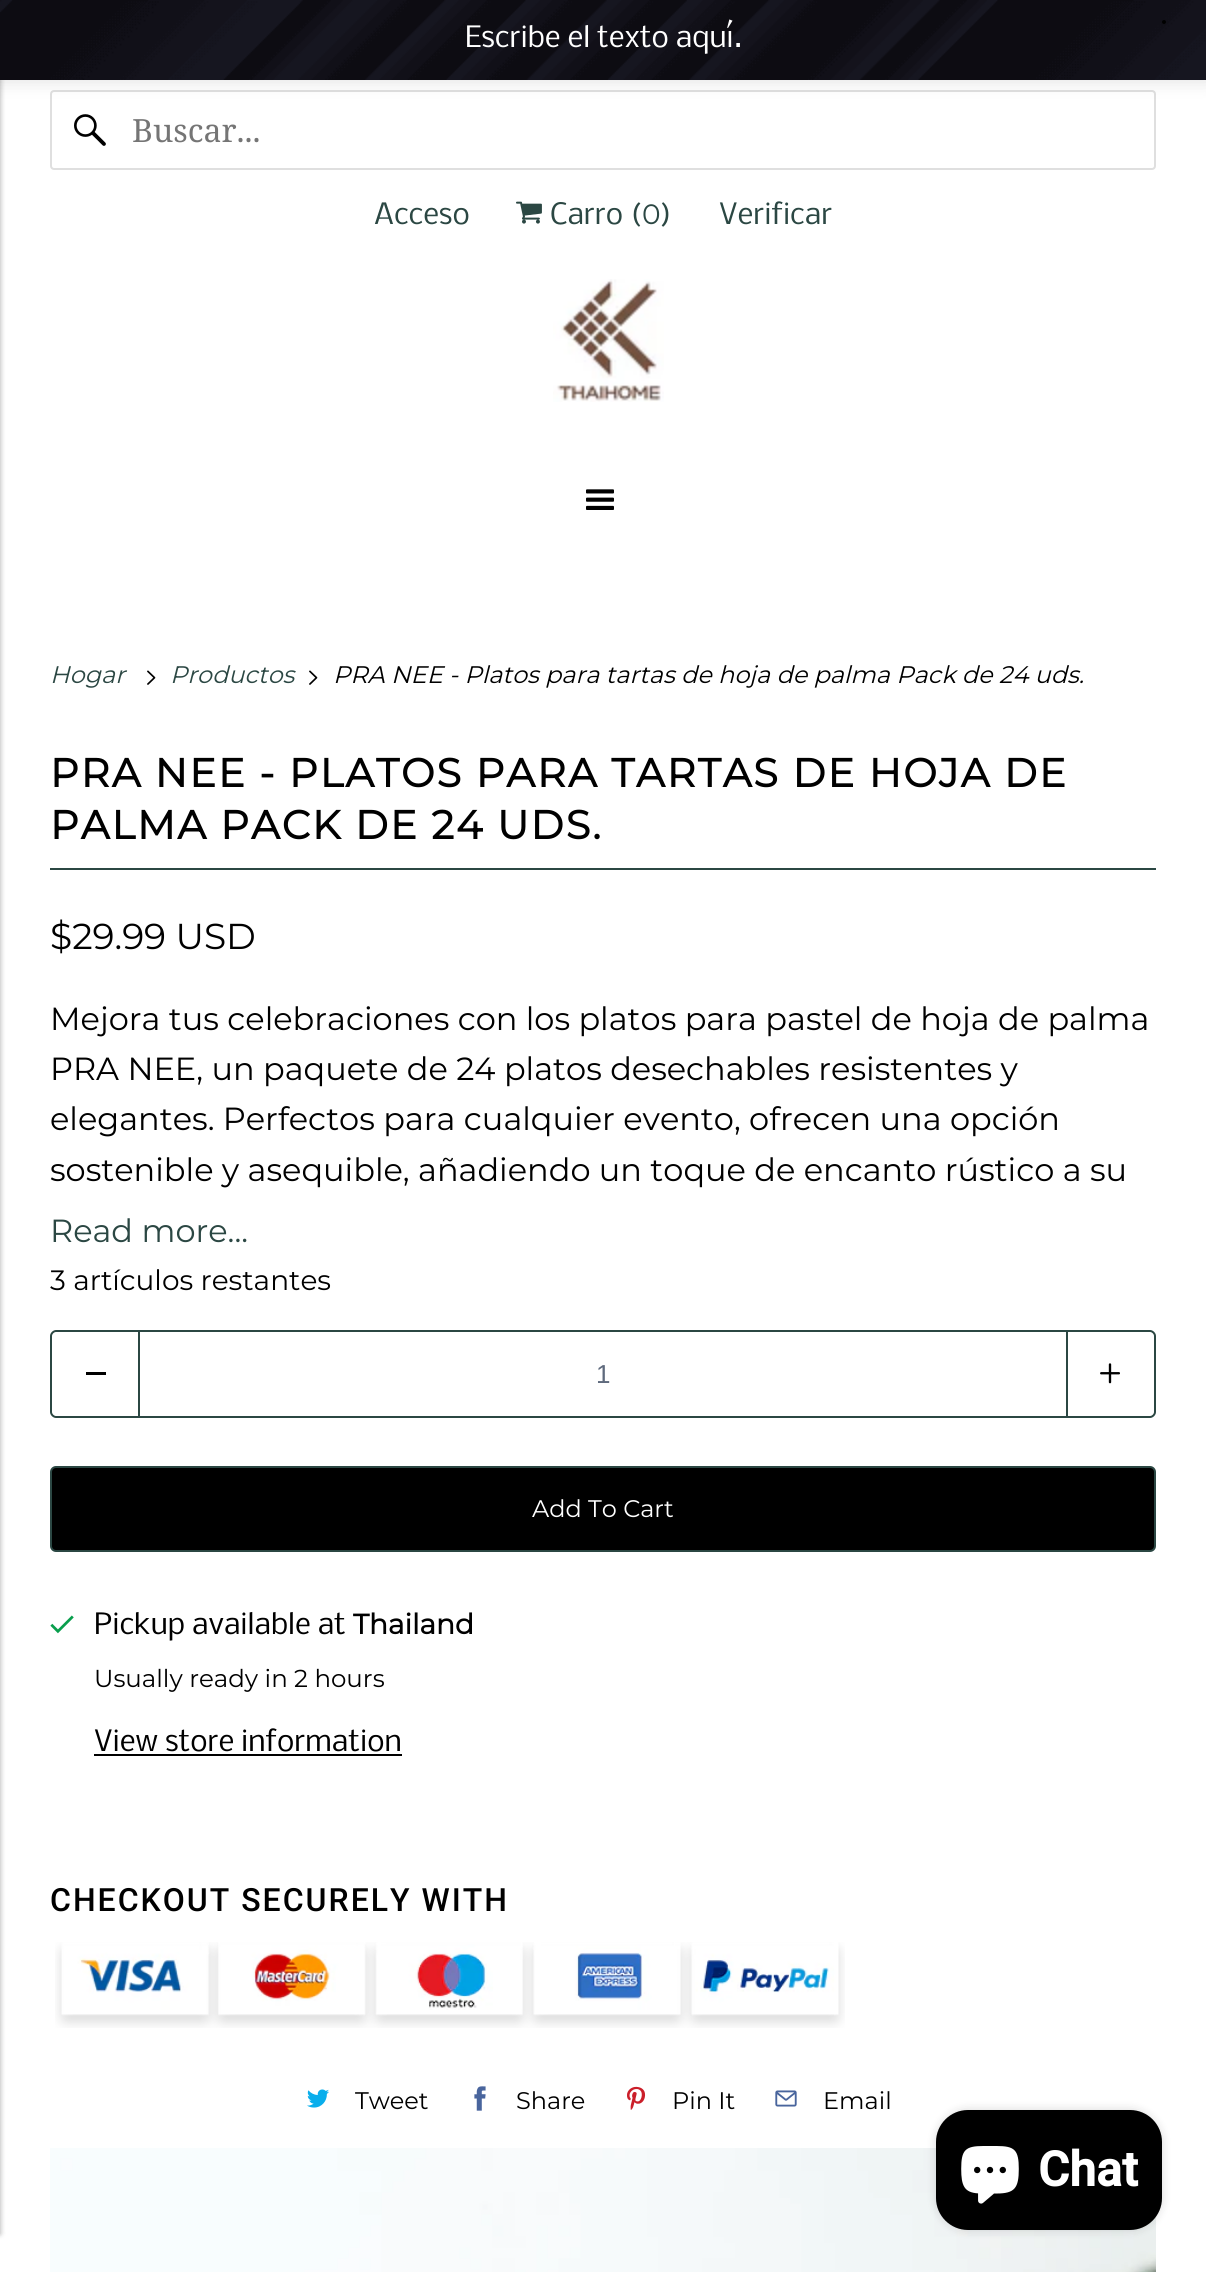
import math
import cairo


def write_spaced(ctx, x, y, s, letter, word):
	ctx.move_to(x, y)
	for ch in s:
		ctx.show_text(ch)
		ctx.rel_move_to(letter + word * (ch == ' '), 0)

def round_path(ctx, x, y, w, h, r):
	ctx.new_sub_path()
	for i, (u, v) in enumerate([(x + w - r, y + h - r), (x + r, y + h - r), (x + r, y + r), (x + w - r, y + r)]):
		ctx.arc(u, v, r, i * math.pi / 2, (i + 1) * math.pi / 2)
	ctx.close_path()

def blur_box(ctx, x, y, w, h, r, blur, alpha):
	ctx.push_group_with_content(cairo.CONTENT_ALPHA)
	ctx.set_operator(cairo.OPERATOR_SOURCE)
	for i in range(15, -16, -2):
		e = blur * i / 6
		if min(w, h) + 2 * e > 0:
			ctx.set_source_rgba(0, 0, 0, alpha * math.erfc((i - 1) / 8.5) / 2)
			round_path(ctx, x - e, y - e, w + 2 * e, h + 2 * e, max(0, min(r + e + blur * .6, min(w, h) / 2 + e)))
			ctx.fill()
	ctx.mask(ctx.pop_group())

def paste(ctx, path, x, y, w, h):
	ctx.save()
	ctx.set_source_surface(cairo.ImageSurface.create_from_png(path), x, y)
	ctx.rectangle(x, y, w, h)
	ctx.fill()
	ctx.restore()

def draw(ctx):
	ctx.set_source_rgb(1, 1, 1)
	ctx.paint()
	round_path(ctx, 51, 91, 1104, 78, 3)
	ctx.set_source_rgb(0.875, 0.875, 0.875)
	ctx.stroke()
	ctx.set_source_rgb(0, 0, 0)
	blur_box(ctx, -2, -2, 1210, 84, 0, 9, 0.11)
	blur_box(ctx, -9, 2, 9, 2232, 0, 3, 0.24)
	blur_box(ctx, -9, 2, 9, 2232, 0, 3, 0.12)
	paste(ctx, 'media/1.png', 0, 0, 1206, 80)
	ctx.select_font_face('Nobile')
	ctx.set_font_size(28)
	ctx.set_source_rgb(1, 1, 1)
	ctx.move_to(465, 47)
	ctx.show_text('Escribe el texto aquí.')
	ctx.set_source_rgb(0, 0, 0)
	ctx.new_path()
	ctx.arc(1164, 22, 2, 0, 2 * math.pi)
	ctx.fill()
	paste(ctx, 'media/2.png', 586, 489, 28, 21)
	paste(ctx, 'media/3.png', 553, 279, 111, 123)
	paste(ctx, 'media/4.png', 74, 114, 32, 32)
	ctx.select_font_face('Noto Serif')
	ctx.set_font_size(32)
	ctx.set_source_rgb(0.459, 0.459, 0.459)
	ctx.move_to(132, 142)
	ctx.show_text('Buscar...')
	ctx.select_font_face('Nobile')
	ctx.set_font_size(28)
	ctx.set_source_rgb(0.169, 0.278, 0.263)
	ctx.move_to(374, 224)
	ctx.show_text('Acceso')
	paste(ctx, 'media/5.png', 516, 201, 26, 23)
	ctx.move_to(550, 224)
	ctx.show_text('Carro (')
	ctx.select_font_face('Montserrat Thin')
	ctx.move_to(642, 224)
	ctx.show_text('0')
	ctx.select_font_face('Nobile')
	ctx.move_to(660, 224)
	ctx.show_text(')')
	ctx.move_to(719, 224)
	ctx.show_text('Verificar')
	ctx.select_font_face('Montserrat Thin', cairo.FONT_SLANT_ITALIC)
	ctx.set_font_size(24)
	ctx.move_to(50, 683)
	ctx.show_text('Hogar')
	paste(ctx, 'media/6.png', 147, 670, 9, 15)
	ctx.move_to(170, 683)
	ctx.show_text('Productos')
	paste(ctx, 'media/6.png', 309, 670, 9, 15)
	ctx.set_source_rgb(0, 0, 0)
	ctx.move_to(333, 683)
	ctx.show_text('PRA NEE - Platos para tartas de hoja de palma Pack de 24 uds.')
	ctx.set_source_rgb(0.169, 0.278, 0.263)
	ctx.rectangle(50, 868, 1106, 2)
	ctx.fill()
	ctx.select_font_face('Montserrat', cairo.FONT_SLANT_NORMAL, cairo.FONT_WEIGHT_BOLD)
	ctx.set_font_size(40)
	ctx.set_source_rgb(0, 0, 0)
	write_spaced(ctx, 50, 787, 'PRA NEE - PLATOS PARA TARTAS DE HOJA DE', 2, 0)
	write_spaced(ctx, 50, 839, 'PALMA PACK DE 24 UDS.', 2, 0)
	ctx.select_font_face('Montserrat Thin')
	ctx.set_font_size(36)
	ctx.move_to(50, 949)
	ctx.show_text('$29.99 USD')
	ctx.set_font_size(32)
	for x, y, s in [
		(50, 1030, 'Mejora tus celebraciones con los platos para pastel de hoja de palma'),
		(50, 1080, 'PRA NEE, un paquete de 24 platos desechables resistentes y'),
		(50, 1130, 'elegantes. Perfectos para cualquier evento, ofrecen una opción'),
		(50, 1181, 'sostenible y asequible, añadiendo un toque de encanto rústico a su'),
	]:
		ctx.move_to(x, y)
		ctx.show_text(s)
	ctx.set_source_rgb(0.169, 0.278, 0.263)
	ctx.move_to(50, 1242)
	ctx.show_text('Read more...')
	ctx.set_font_size(28)
	ctx.set_source_rgb(0, 0, 0)
	ctx.move_to(50, 1290)
	ctx.show_text('3 artículos restantes')
	ctx.set_source_rgb(0.169, 0.278, 0.263)
	ctx.set_fill_rule(cairo.FILL_RULE_EVEN_ODD)
	ctx.new_path()
	ctx.move_to(56, 1330)
	ctx.line_to(138, 1330)
	ctx.line_to(138, 1418)
	ctx.line_to(56, 1418)
	ctx.curve_to(53, 1418, 50, 1415, 50, 1412)
	ctx.line_to(50, 1336)
	ctx.curve_to(50, 1333, 53, 1330, 56, 1330)
	ctx.close_path()
	ctx.move_to(56, 1332)
	ctx.line_to(138, 1332)
	ctx.line_to(138, 1416)
	ctx.line_to(56, 1416)
	ctx.curve_to(54, 1416, 52, 1414, 52, 1412)
	ctx.line_to(52, 1336)
	ctx.curve_to(52, 1334, 54, 1332, 56, 1332)
	ctx.close_path()
	ctx.fill()
	ctx.set_source_rgb(0, 0, 0)
	ctx.rectangle(86, 1372, 20, 3)
	ctx.fill()
	ctx.rectangle(139, 1331, 928, 86)
	ctx.set_source_rgb(0.169, 0.278, 0.263)
	ctx.stroke()
	ctx.select_font_face('Liberation Sans')
	ctx.set_font_size(26)
	ctx.set_source_rgb(0.373, 0.416, 0.49)
	ctx.move_to(596, 1383)
	ctx.show_text('1')
	ctx.set_source_rgb(0.169, 0.278, 0.263)
	ctx.new_path()
	ctx.move_to(1068, 1330)
	ctx.line_to(1150, 1330)
	ctx.curve_to(1153, 1330, 1156, 1333, 1156, 1336)
	ctx.line_to(1156, 1412)
	ctx.curve_to(1156, 1415, 1153, 1418, 1150, 1418)
	ctx.line_to(1068, 1418)
	ctx.close_path()
	ctx.move_to(1068, 1332)
	ctx.line_to(1150, 1332)
	ctx.curve_to(1152, 1332, 1154, 1334, 1154, 1336)
	ctx.line_to(1154, 1412)
	ctx.curve_to(1154, 1414, 1152, 1416, 1150, 1416)
	ctx.line_to(1068, 1416)
	ctx.close_path()
	ctx.fill()
	paste(ctx, 'media/7.png', 1100, 1363, 20, 21)
	ctx.set_source_rgb(0, 0, 0)
	round_path(ctx, 51, 1467, 1104, 84, 5)
	ctx.fill_preserve()
	ctx.set_source_rgb(0.169, 0.278, 0.263)
	ctx.stroke()
	ctx.select_font_face('Montserrat Thin')
	ctx.set_font_size(24)
	ctx.set_source_rgb(1, 1, 1)
	ctx.move_to(532, 1517)
	ctx.show_text('Add To Cart')
	paste(ctx, 'media/8.png', 50, 1615, 24, 19)
	ctx.select_font_face('Nobile')
	ctx.set_font_size(28)
	ctx.set_source_rgb(0, 0, 0)
	ctx.move_to(94, 1634)
	ctx.show_text('Pickup available at')
	ctx.select_font_face('Montserrat', cairo.FONT_SLANT_NORMAL, cairo.FONT_WEIGHT_BOLD)
	ctx.move_to(353, 1634)
	ctx.show_text('Thailand')
	ctx.select_font_face('Montserrat Thin')
	ctx.set_font_size(24.5)
	ctx.move_to(94, 1687)
	ctx.show_text('Usually ready in 2 hours')
	ctx.select_font_face('Nobile')
	ctx.set_font_size(28)
	ctx.move_to(94, 1751)
	ctx.show_text('View store information')
	ctx.rectangle(94, 1754, 308, 2)
	ctx.fill()
	ctx.select_font_face('Roboto Medium')
	ctx.set_font_size(32)
	write_spaced(ctx, 50, 1911, 'CHECKOUT SECURELY WITH', 2, 0)
	paste(ctx, 'media/9.png', 55, 1942, 790, 86)
	paste(ctx, 'media/10.png', 307, 2089, 22, 19)
	ctx.select_font_face('Montserrat Thin')
	ctx.set_font_size(24)
	ctx.move_to(355, 2109)
	ctx.show_text('Tweet')
	paste(ctx, 'media/11.png', 474, 2086, 12, 25)
	ctx.move_to(516, 2109)
	ctx.show_text('Share')
	paste(ctx, 'media/12.png', 627, 2086, 19, 24)
	ctx.move_to(672, 2109)
	ctx.show_text('Pin It')
	paste(ctx, 'media/13.png', 775, 2090, 22, 17)
	ctx.move_to(823, 2109)
	ctx.show_text('Email')
	paste(ctx, 'media/14.png', 50, 2148, 1106, 124)
	ctx.set_source_rgb(0, 0, 0)
	blur_box(ctx, 936, 2110, 226, 120, 32, 5, 0.15)
	ctx.set_source_rgb(0, 0, 0)
	round_path(ctx, 936, 2110, 226, 120, 32)
	ctx.fill()
	paste(ctx, 'media/15.png', 961, 2146, 58, 58)
	ctx.select_font_face('Roboto', cairo.FONT_SLANT_NORMAL, cairo.FONT_WEIGHT_BOLD)
	ctx.set_font_size(48)
	ctx.set_source_rgb(1, 1, 1)
	ctx.move_to(1038, 2186)
	ctx.show_text('Chat')


surface = cairo.ImageSurface(cairo.FORMAT_RGB24, 1206, 2272)
ctx = cairo.Context(surface)
options = cairo.FontOptions()
options.set_hint_metrics(cairo.HINT_METRICS_OFF)
options.set_hint_style(cairo.HINT_STYLE_NONE)
ctx.set_font_options(options)
ctx.set_miter_limit(4)
draw(ctx)
surface.write_to_png('image.png')
